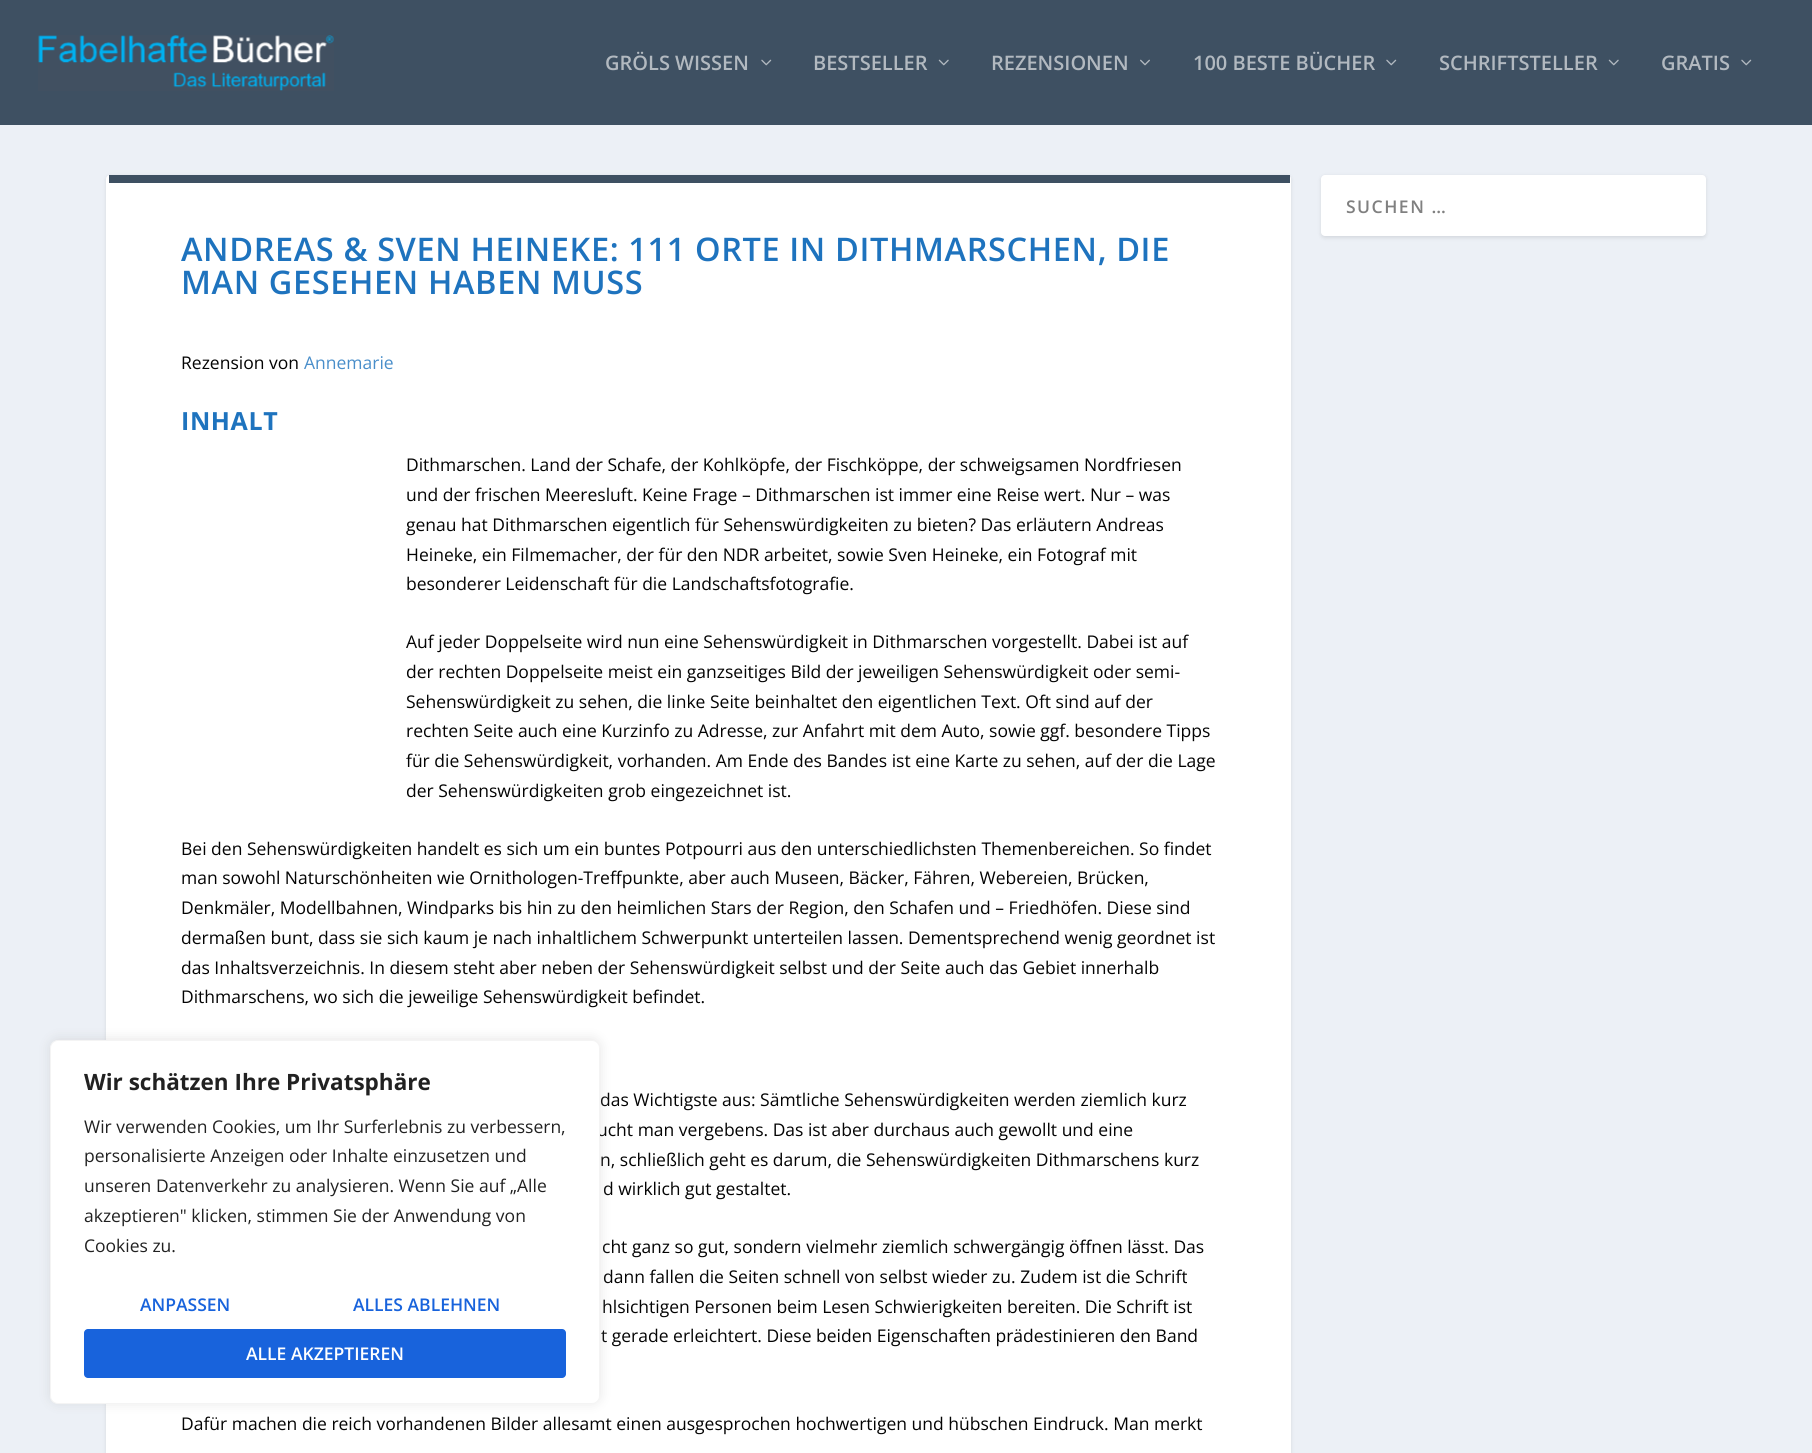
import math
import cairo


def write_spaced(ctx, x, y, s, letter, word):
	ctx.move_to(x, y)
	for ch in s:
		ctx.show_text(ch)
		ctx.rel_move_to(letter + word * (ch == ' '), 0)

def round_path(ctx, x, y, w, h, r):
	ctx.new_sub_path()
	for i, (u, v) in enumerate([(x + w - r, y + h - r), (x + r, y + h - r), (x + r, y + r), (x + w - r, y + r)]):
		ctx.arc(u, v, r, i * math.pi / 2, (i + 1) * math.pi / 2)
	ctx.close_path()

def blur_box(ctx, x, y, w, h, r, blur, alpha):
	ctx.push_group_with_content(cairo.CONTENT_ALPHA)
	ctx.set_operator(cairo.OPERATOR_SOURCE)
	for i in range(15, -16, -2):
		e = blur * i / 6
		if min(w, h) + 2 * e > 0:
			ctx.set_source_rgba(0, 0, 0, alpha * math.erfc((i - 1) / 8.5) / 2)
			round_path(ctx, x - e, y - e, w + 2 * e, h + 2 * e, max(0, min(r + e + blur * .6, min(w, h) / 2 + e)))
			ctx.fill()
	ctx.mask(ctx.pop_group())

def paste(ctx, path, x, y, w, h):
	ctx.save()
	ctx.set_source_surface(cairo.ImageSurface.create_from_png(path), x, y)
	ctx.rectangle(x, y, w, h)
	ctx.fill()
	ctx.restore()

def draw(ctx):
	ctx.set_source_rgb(0.925, 0.941, 0.961)
	ctx.paint()
	ctx.set_source_rgb(0.243, 0.314, 0.384)
	ctx.rectangle(0, 0, 1812, 125)
	ctx.fill()
	paste(ctx, 'media/1.png', 38, 35, 296, 56)
	ctx.select_font_face('Open Sans SemiBold')
	ctx.set_font_size(20)
	ctx.set_source_rgb(0.698, 0.725, 0.753)
	ctx.move_to(605, 70)
	ctx.show_text('GRÖLS WISSEN')
	paste(ctx, 'media/2.png', 761, 59, 11, 7)
	ctx.move_to(813, 70)
	ctx.show_text('BESTSELLER')
	paste(ctx, 'media/3.png', 938, 59, 11, 7)
	ctx.move_to(991, 70)
	ctx.show_text('REZENSIONEN')
	paste(ctx, 'media/4.png', 1140, 59, 10, 7)
	ctx.move_to(1193, 70)
	ctx.show_text('100 BESTE BÜCHER')
	paste(ctx, 'media/2.png', 1386, 59, 11, 7)
	ctx.move_to(1439, 70)
	ctx.show_text('SCHRIFTSTELLER')
	paste(ctx, 'media/3.png', 1608, 59, 11, 7)
	ctx.move_to(1661, 70)
	ctx.show_text('GRATIS')
	paste(ctx, 'media/2.png', 1741, 59, 11, 7)
	ctx.set_source_rgb(0, 0, 0)
	blur_box(ctx, 1321, 176, 385, 62, 4, 2, 0.1)
	ctx.set_source_rgb(1, 1, 1)
	round_path(ctx, 1321, 175, 385, 61, 4)
	ctx.fill()
	ctx.set_font_size(17.5)
	ctx.set_source_rgb(0.502, 0.502, 0.502)
	write_spaced(ctx, 1346, 213, 'SUCHEN …', 1.5, 0)
	ctx.set_source_rgb(0, 0, 0)
	blur_box(ctx, 106, 176, 1185, 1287, 4, 2, 0.1)
	ctx.set_source_rgb(1, 1, 1)
	round_path(ctx, 106, 175, 1185, 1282, 4)
	ctx.fill()
	ctx.set_source_rgb(0.243, 0.314, 0.384)
	ctx.rectangle(109, 175, 1181, 8)
	ctx.fill()
	ctx.set_font_size(32.5)
	ctx.set_source_rgb(0.118, 0.451, 0.745)
	write_spaced(ctx, 181, 261, 'ANDREAS & SVEN HEINEKE: 111 ORTE IN DITHMARSCHEN, DIE', 0.62, 0)
	write_spaced(ctx, 181, 294, 'MAN GESEHEN HABEN MUSS', 0.62, 0)
	ctx.select_font_face('Open Sans')
	ctx.set_font_size(17.5)
	ctx.set_source_rgb(0.012, 0.012, 0.012)
	ctx.move_to(181, 369)
	ctx.show_text('Rezension von')
	ctx.set_source_rgb(0.286, 0.557, 0.792)
	ctx.move_to(304, 369)
	ctx.show_text('Annemarie')
	ctx.select_font_face('Open Sans', cairo.FONT_SLANT_NORMAL, cairo.FONT_WEIGHT_BOLD)
	ctx.set_font_size(25)
	ctx.set_source_rgb(0.118, 0.451, 0.745)
	write_spaced(ctx, 181, 430, 'INHALT', 0.62, 0)
	ctx.select_font_face('Open Sans')
	ctx.set_font_size(17.5)
	ctx.set_source_rgb(0.012, 0.012, 0.012)
	for x, y, s in [
		(406, 471, 'Dithmarschen. Land der Schafe, der Kohlköpfe, der Fischköppe, der schweigsamen Nordfriesen'),
		(406, 501, 'und der frischen Meeresluft. Keine Frage – Dithmarschen ist immer eine Reise wert. Nur – was'),
		(406, 531, 'genau hat Dithmarschen eigentlich für Sehenswürdigkeiten zu bieten? Das erläutern Andreas'),
		(406, 561, 'Heineke, ein Filmemacher, der für den NDR arbeitet, sowie Sven Heineke, ein Fotograf mit'),
		(406, 590, 'besonderer Leidenschaft für die Landschaftsfotografie.'),
		(406, 648, 'Auf jeder Doppelseite wird nun eine Sehenswürdigkeit in Dithmarschen vorgestellt. Dabei ist auf'),
		(406, 678, 'der rechten Doppelseite meist ein ganzseitiges Bild der jeweiligen Sehenswürdigkeit oder semi-'),
		(406, 708, 'Sehenswürdigkeit zu sehen, die linke Seite beinhaltet den eigentlichen Text. Oft sind auf der'),
		(406, 737, 'rechten Seite auch eine Kurzinfo zu Adresse, zur Anfahrt mit dem Auto, sowie ggf. besondere Tipps'),
		(406, 767, 'für die Sehenswürdigkeit, vorhanden. Am Ende des Bandes ist eine Karte zu sehen, auf der die Lage'),
		(406, 797, 'der Sehenswürdigkeiten grob eingezeichnet ist.'),
		(181, 855, 'Bei den Sehenswürdigkeiten handelt es sich um ein buntes Potpourri aus den unterschiedlichsten Themenbereichen. So findet'),
		(181, 884, 'man sowohl Naturschönheiten wie Ornithologen-Treffpunkte, aber auch Museen, Bäcker, Fähren, Webereien, Brücken,'),
		(181, 914, 'Denkmäler, Modellbahnen, Windparks bis hin zu den heimlichen Stars der Region, den Schafen und – Friedhöfen. Diese sind'),
		(181, 944, 'dermaßen bunt, dass sie sich kaum je nach inhaltlichem Schwerpunkt unterteilen lassen. Dementsprechend wenig geordnet ist'),
		(181, 974, 'das Inhaltsverzeichnis. In diesem steht aber neben der Sehenswürdigkeit selbst und der Seite auch das Gebiet innerhalb'),
		(181, 1003, 'Dithmarschens, wo sich die jeweilige Sehenswürdigkeit befindet.'),
		(600, 1106, 'das Wichtigste aus: Sämtliche Sehenswürdigkeiten werden ziemlich kurz'),
		(597, 1136, 'ucht man vergebens. Das ist aber durchaus auch gewollt und eine'),
		(600, 1166, 'n, schließlich geht es darum, die Sehenswürdigkeiten Dithmarschens kurz'),
		(603, 1195, 'd wirklich gut gestaltet.'),
		(602, 1253, 'cht ganz so gut, sondern vielmehr ziemlich schwergängig öffnen lässt. Das'),
		(603, 1283, 'dann fallen die Seiten schnell von selbst wieder zu. Zudem ist die Schrift'),
		(602, 1313, 'hlsichtigen Personen beim Lesen Schwierigkeiten bereiten. Die Schrift ist'),
		(601, 1342, 't gerade erleichtert. Diese beiden Eigenschaften prädestinieren den Band'),
		(181, 1430, 'Dafür machen die reich vorhandenen Bilder allesamt einen ausgesprochen hochwertigen und hübschen Eindruck. Man merkt'),
	]:
		ctx.move_to(x, y)
		ctx.show_text(s)
	ctx.set_source_rgb(0.675, 0.671, 0.671)
	blur_box(ctx, 50, 1039, 550, 364, 8, 6, 0.3)
	ctx.set_source_rgb(1, 1, 1)
	round_path(ctx, 50.5, 1040.5, 549, 363, 7.5)
	ctx.fill_preserve()
	ctx.set_source_rgb(0.957, 0.957, 0.957)
	ctx.set_line_width(1)
	ctx.stroke()
	ctx.select_font_face('Open Sans', cairo.FONT_SLANT_NORMAL, cairo.FONT_WEIGHT_BOLD)
	ctx.set_font_size(22.5)
	ctx.set_source_rgb(0.129, 0.129, 0.129)
	ctx.move_to(84, 1090)
	ctx.show_text('Wir schätzen Ihre Privatsphäre')
	ctx.select_font_face('Open Sans')
	ctx.set_font_size(17.5)
	for x, y, s in [
		(84, 1133, 'Wir verwenden Cookies, um Ihr Surferlebnis zu verbessern,'),
		(84, 1162, 'personalisierte Anzeigen oder Inhalte einzusetzen und'),
		(84, 1192, 'unseren Datenverkehr zu analysieren. Wenn Sie auf „Alle'),
		(84, 1222, 'akzeptieren" klicken, stimmen Sie der Anwendung von'),
		(84, 1252, 'Cookies zu.'),
	]:
		ctx.move_to(x, y)
		ctx.show_text(s)
	ctx.select_font_face('Open Sans SemiBold')
	ctx.set_source_rgb(0.094, 0.388, 0.863)
	ctx.move_to(140, 1311)
	ctx.show_text('ANPASSEN')
	ctx.move_to(353, 1311)
	ctx.show_text('ALLES ABLEHNEN')
	round_path(ctx, 84, 1329, 482, 49, 4)
	ctx.fill()
	ctx.set_source_rgb(1, 1, 1)
	ctx.move_to(246, 1360)
	ctx.show_text('ALLE AKZEPTIEREN')


surface = cairo.ImageSurface(cairo.FORMAT_RGB24, 1812, 1453)
ctx = cairo.Context(surface)
options = cairo.FontOptions()
options.set_hint_metrics(cairo.HINT_METRICS_OFF)
options.set_hint_style(cairo.HINT_STYLE_NONE)
ctx.set_font_options(options)
ctx.set_miter_limit(4)
draw(ctx)
surface.write_to_png('image.png')
